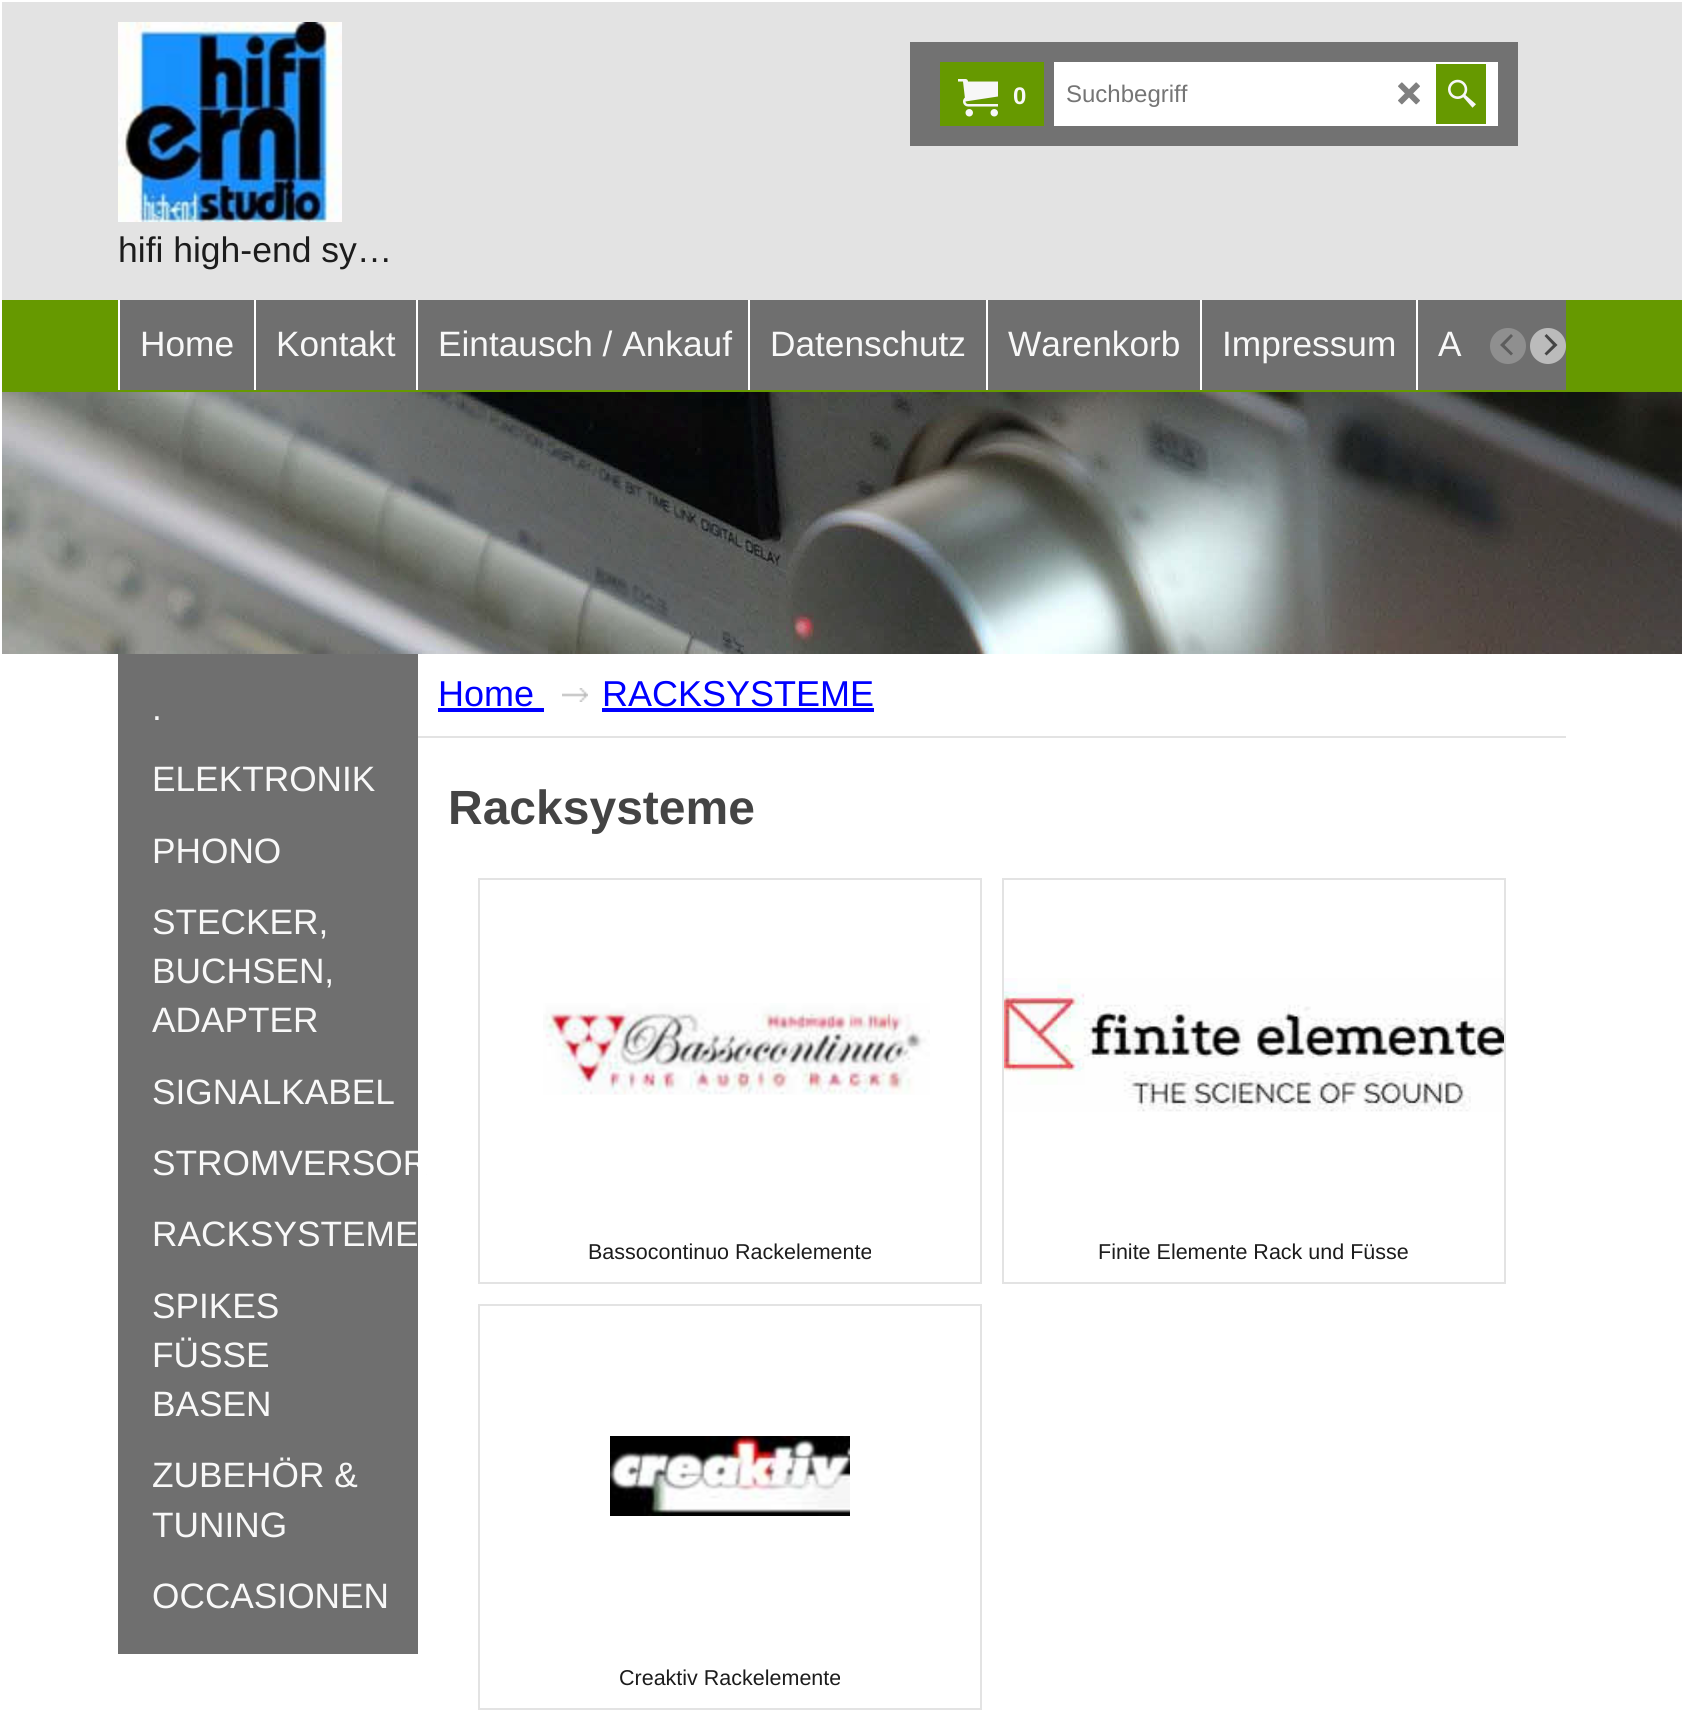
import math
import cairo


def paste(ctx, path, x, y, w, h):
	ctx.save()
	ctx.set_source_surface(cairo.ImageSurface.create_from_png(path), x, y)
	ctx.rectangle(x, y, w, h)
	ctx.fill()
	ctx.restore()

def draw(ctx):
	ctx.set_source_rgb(1, 1, 1)
	ctx.paint()
	ctx.set_source_rgb(0.89, 0.89, 0.89)
	ctx.rectangle(2, 2, 1680, 298)
	ctx.fill()
	ctx.set_source_rgb(0.447, 0.447, 0.447)
	ctx.rectangle(910, 42, 608, 104)
	ctx.fill()
	ctx.set_source_rgb(0.4, 0.6, 0)
	ctx.rectangle(940, 62, 104, 64)
	ctx.fill()
	paste(ctx, 'media/1.png', 958, 79, 40, 38)
	ctx.select_font_face('Liberation Sans', cairo.FONT_SLANT_NORMAL, cairo.FONT_WEIGHT_BOLD)
	ctx.set_font_size(24)
	ctx.set_source_rgb(0.969, 0.969, 0.969)
	ctx.move_to(1013, 104)
	ctx.show_text('0')
	ctx.set_source_rgb(1, 1, 1)
	ctx.rectangle(1054, 62, 444, 64)
	ctx.fill()
	ctx.select_font_face('Liberation Sans')
	ctx.set_source_rgb(0.459, 0.459, 0.459)
	ctx.move_to(1066, 102)
	ctx.show_text('Suchbegriff')
	paste(ctx, 'media/2.png', 1398, 82, 22, 23)
	ctx.set_source_rgb(0.4, 0.6, 0)
	ctx.rectangle(1436, 64, 50, 60)
	ctx.fill()
	paste(ctx, 'media/3.png', 1448, 79, 28, 29)
	paste(ctx, 'media/4.png', 118, 22, 224, 200)
	ctx.set_font_size(35.5)
	ctx.set_source_rgb(0.11, 0.11, 0.11)
	ctx.move_to(118, 262)
	ctx.show_text('hifi high-end sy…')
	ctx.set_source_rgb(0.4, 0.6, 0)
	ctx.rectangle(2, 300, 1680, 92)
	ctx.fill()
	ctx.set_source_rgb(0.435, 0.435, 0.435)
	ctx.rectangle(120, 300, 1446, 90)
	ctx.fill()
	ctx.set_source_rgb(1, 1, 1)
	ctx.rectangle(118, 300, 2, 90)
	ctx.fill()
	ctx.set_font_size(35.25)
	ctx.set_source_rgb(0.969, 0.969, 0.969)
	ctx.move_to(140, 356)
	ctx.show_text('Home')
	ctx.set_source_rgb(1, 1, 1)
	ctx.rectangle(254, 300, 2, 90)
	ctx.fill()
	ctx.set_source_rgb(0.969, 0.969, 0.969)
	ctx.move_to(276, 356)
	ctx.show_text('Kontakt')
	ctx.set_source_rgb(1, 1, 1)
	ctx.rectangle(416, 300, 2, 90)
	ctx.fill()
	ctx.set_source_rgb(0.969, 0.969, 0.969)
	ctx.move_to(438, 356)
	ctx.show_text('Eintausch / Ankauf')
	ctx.set_source_rgb(1, 1, 1)
	ctx.rectangle(748, 300, 2, 90)
	ctx.fill()
	ctx.set_source_rgb(0.969, 0.969, 0.969)
	ctx.move_to(770, 356)
	ctx.show_text('Datenschutz')
	ctx.set_source_rgb(1, 1, 1)
	ctx.rectangle(986, 300, 2, 90)
	ctx.fill()
	ctx.set_source_rgb(0.969, 0.969, 0.969)
	ctx.move_to(1008, 356)
	ctx.show_text('Warenkorb')
	ctx.set_source_rgb(1, 1, 1)
	ctx.rectangle(1200, 300, 2, 90)
	ctx.fill()
	ctx.set_source_rgb(0.969, 0.969, 0.969)
	ctx.move_to(1222, 356)
	ctx.show_text('Impressum')
	ctx.set_source_rgb(1, 1, 1)
	ctx.rectangle(1416, 300, 2, 90)
	ctx.fill()
	ctx.set_source_rgb(0.969, 0.969, 0.969)
	ctx.move_to(1438, 356)
	ctx.show_text('A')
	ctx.set_source_rgb(0.561, 0.561, 0.561)
	ctx.new_path()
	ctx.arc(1508, 346, 18, 0, 2 * math.pi)
	ctx.fill()
	ctx.set_source_rgb(0.365, 0.365, 0.365)
	ctx.new_path()
	ctx.move_to(1500, 345)
	ctx.line_to(1511, 355.5)
	ctx.line_to(1513, 353.5)
	ctx.line_to(1504.5, 345)
	ctx.line_to(1513, 336)
	ctx.line_to(1511, 334)
	ctx.close_path()
	ctx.fill()
	ctx.set_source_rgb(0.733, 0.733, 0.733)
	ctx.arc(1548, 346, 18, 0, 2 * math.pi)
	ctx.fill()
	ctx.set_source_rgb(0.271, 0.271, 0.271)
	ctx.new_path()
	ctx.move_to(1557.5, 345)
	ctx.line_to(1546.5, 334)
	ctx.line_to(1544.5, 336)
	ctx.line_to(1553, 345)
	ctx.line_to(1544.5, 353.5)
	ctx.line_to(1546.5, 355.5)
	ctx.close_path()
	ctx.fill()
	paste(ctx, 'media/5.png', 2, 392, 1680, 262)
	ctx.set_source_rgb(0.435, 0.435, 0.435)
	ctx.rectangle(118, 654, 300, 1000)
	ctx.fill()
	ctx.set_source_rgb(0.969, 0.969, 0.969)
	for x, y, s in [
		(152, 720, '.'),
		(152, 791, 'ELEKTRONIK'),
		(152, 863, 'PHONO'),
		(152, 934, 'STECKER,'),
		(152, 983, 'BUCHSEN,'),
		(152, 1032, 'ADAPTER'),
		(152, 1104, 'SIGNALKABEL'),
		(152, 1175, 'STROMVERSOR'),
		(152, 1246, 'RACKSYSTEME'),
		(152, 1318, 'SPIKES'),
		(152, 1367, 'FÜSSE'),
		(152, 1416, 'BASEN'),
		(152, 1487, 'ZUBEHÖR &'),
		(152, 1537, 'TUNING'),
		(152, 1608, 'OCCASIONEN'),
	]:
		ctx.move_to(x, y)
		ctx.show_text(s)
	ctx.set_source_rgb(1, 1, 1)
	ctx.rectangle(418, 1151, 8, 24)
	ctx.fill()
	ctx.set_source_rgb(0.89, 0.89, 0.89)
	ctx.rectangle(418, 736, 1148, 2)
	ctx.fill()
	ctx.set_font_size(36)
	ctx.set_source_rgb(0, 0, 1)
	ctx.move_to(438, 706)
	ctx.show_text('Home')
	ctx.rectangle(438, 708, 106, 4)
	ctx.fill()
	paste(ctx, 'media/6.png', 562, 688, 26, 14)
	ctx.move_to(602, 706)
	ctx.show_text('RACKSYSTEME')
	ctx.rectangle(602, 708, 272, 4)
	ctx.fill()
	ctx.select_font_face('Liberation Sans', cairo.FONT_SLANT_NORMAL, cairo.FONT_WEIGHT_BOLD)
	ctx.set_font_size(48)
	ctx.set_source_rgb(0.267, 0.267, 0.267)
	ctx.move_to(448, 824)
	ctx.show_text('Racksysteme')
	ctx.rectangle(479, 879, 502, 404)
	ctx.set_source_rgb(0.89, 0.89, 0.89)
	ctx.stroke()
	paste(ctx, 'media/7.png', 543, 1003, 387, 92)
	ctx.select_font_face('Liberation Sans')
	ctx.set_font_size(21.5)
	ctx.set_source_rgb(0.11, 0.11, 0.11)
	ctx.move_to(588, 1259)
	ctx.show_text('Bassocontinuo Rackelemente')
	ctx.rectangle(1003, 879, 502, 404)
	ctx.set_source_rgb(0.89, 0.89, 0.89)
	ctx.stroke()
	paste(ctx, 'media/8.png', 1004, 978, 500, 134)
	ctx.set_source_rgb(0.11, 0.11, 0.11)
	ctx.move_to(1098, 1259)
	ctx.show_text('Finite Elemente Rack und Füsse')
	ctx.rectangle(479, 1305, 502, 404)
	ctx.set_source_rgb(0.89, 0.89, 0.89)
	ctx.stroke()
	paste(ctx, 'media/9.png', 610, 1436, 240, 80)
	ctx.set_source_rgb(0.11, 0.11, 0.11)
	ctx.move_to(619, 1685)
	ctx.show_text('Creaktiv Rackelemente')


surface = cairo.ImageSurface(cairo.FORMAT_RGB24, 1683, 1732)
ctx = cairo.Context(surface)
options = cairo.FontOptions()
options.set_hint_metrics(cairo.HINT_METRICS_OFF)
options.set_hint_style(cairo.HINT_STYLE_NONE)
ctx.set_font_options(options)
ctx.set_miter_limit(4)
draw(ctx)
surface.write_to_png('image.png')
